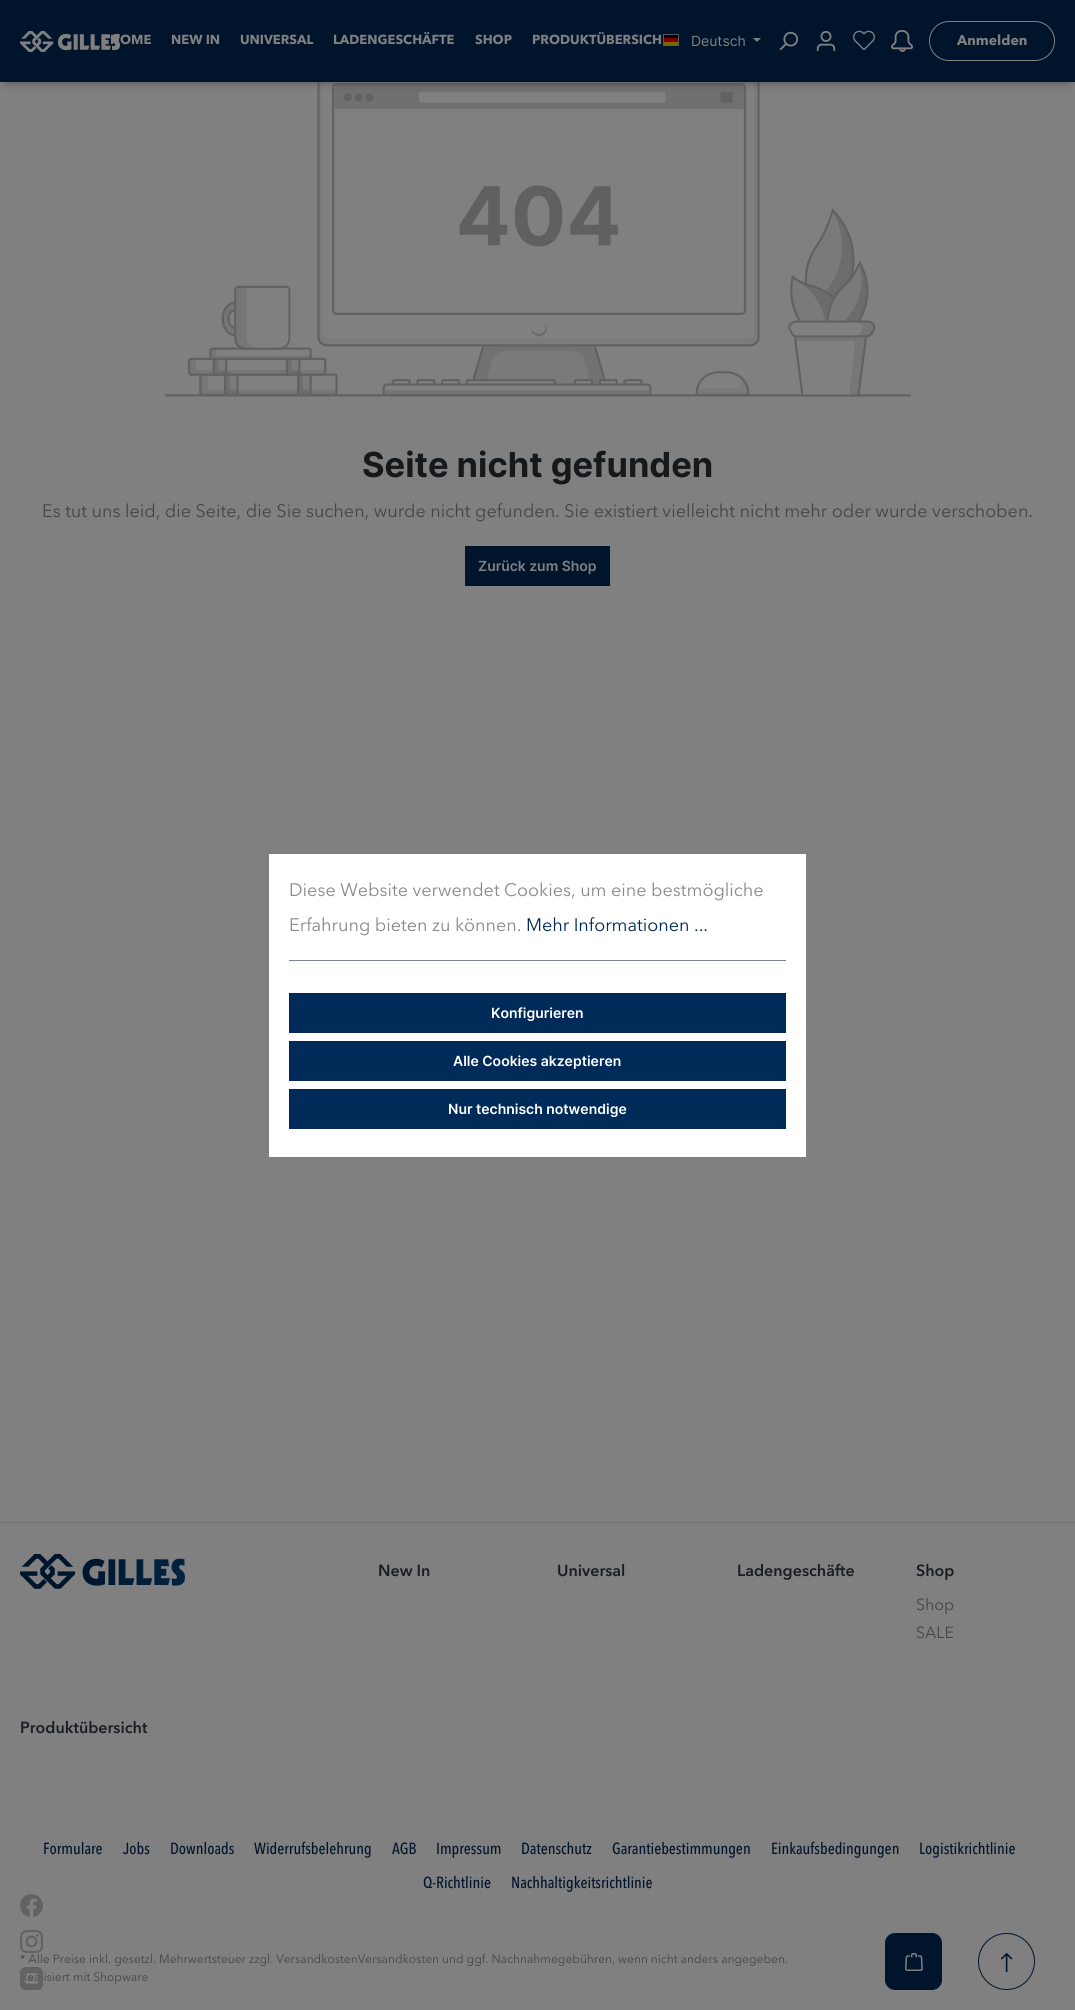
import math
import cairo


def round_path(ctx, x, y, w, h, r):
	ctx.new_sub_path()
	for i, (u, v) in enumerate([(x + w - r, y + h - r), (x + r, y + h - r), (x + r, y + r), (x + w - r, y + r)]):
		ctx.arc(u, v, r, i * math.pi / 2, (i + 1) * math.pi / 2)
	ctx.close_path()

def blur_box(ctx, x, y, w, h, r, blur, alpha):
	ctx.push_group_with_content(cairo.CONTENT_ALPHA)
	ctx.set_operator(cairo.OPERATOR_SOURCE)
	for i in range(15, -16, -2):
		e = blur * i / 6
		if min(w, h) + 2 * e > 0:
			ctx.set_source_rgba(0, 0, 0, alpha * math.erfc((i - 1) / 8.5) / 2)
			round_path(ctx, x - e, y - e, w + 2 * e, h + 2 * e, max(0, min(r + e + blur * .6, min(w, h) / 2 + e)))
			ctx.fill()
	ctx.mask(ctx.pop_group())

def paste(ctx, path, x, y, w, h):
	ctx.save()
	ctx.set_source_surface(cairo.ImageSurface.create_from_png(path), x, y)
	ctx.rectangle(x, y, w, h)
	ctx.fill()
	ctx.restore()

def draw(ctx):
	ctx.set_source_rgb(0.502, 0.502, 0.502)
	ctx.paint()
	paste(ctx, 'media/6.png', 165, 82, 746, 315)
	ctx.set_source_rgb(0.2, 0.2, 0.2)
	blur_box(ctx, 6, 10, 1063, 70, 0, 5, 1)
	ctx.set_source_rgb(0, 0.082, 0.173)
	ctx.rectangle(0, 0, 1075, 82)
	ctx.fill()
	paste(ctx, 'media/1.png', 20, 31, 100, 21)
	ctx.select_font_face('Avenir Next', cairo.FONT_SLANT_NORMAL, cairo.FONT_WEIGHT_BOLD)
	ctx.set_font_size(13)
	ctx.set_source_rgb(0.502, 0.502, 0.502)
	for x, y, s in [
		(110, 44, 'HOME'),
		(171, 44, 'NEW IN'),
		(240, 44, 'UNIVERSAL'),
		(333, 44, 'LADENGESCHÄFTE'),
		(475, 44, 'SHOP'),
		(532, 44, 'PRODUKTÜBERSICH'),
	]:
		ctx.move_to(x, y)
		ctx.show_text(s)
	ctx.set_source_rgb(0, 0, 0)
	ctx.rectangle(664, 35, 14, 3)
	ctx.fill()
	ctx.set_source_rgb(0.502, 0, 0)
	ctx.rectangle(664, 38, 14, 4)
	ctx.fill()
	ctx.set_source_rgb(0.502, 0.4, 0)
	ctx.rectangle(664, 42, 14, 3)
	ctx.fill()
	ctx.rectangle(663.5, 34.5, 15, 11)
	ctx.set_source_rgb(0.341, 0.357, 0.373)
	ctx.set_line_width(1)
	ctx.stroke()
	ctx.select_font_face('Inter')
	ctx.set_font_size(14)
	ctx.set_source_rgb(0.502, 0.502, 0.502)
	ctx.move_to(691, 46)
	ctx.show_text('Deutsch')
	ctx.new_path()
	ctx.move_to(753, 38)
	ctx.line_to(761, 38)
	ctx.line_to(757, 42)
	ctx.close_path()
	ctx.fill()
	paste(ctx, 'media/2.png', 779, 31, 20, 20)
	paste(ctx, 'media/3.png', 816, 30, 20, 22)
	paste(ctx, 'media/4.png', 853, 30, 22, 21)
	paste(ctx, 'media/5.png', 891, 30, 22, 22)
	round_path(ctx, 929.5, 21.5, 125, 39, 19.5)
	ctx.stroke()
	ctx.select_font_face('Avenir Next', cairo.FONT_SLANT_NORMAL, cairo.FONT_WEIGHT_BOLD)
	ctx.move_to(957, 45)
	ctx.show_text('Anmelden')
	ctx.select_font_face('Inter', cairo.FONT_SLANT_NORMAL, cairo.FONT_WEIGHT_BOLD)
	ctx.set_font_size(34.5)
	ctx.set_source_rgb(0.086, 0.098, 0.106)
	ctx.move_to(362, 477)
	ctx.show_text('Seite nicht gefunden')
	ctx.select_font_face('Avenir Next')
	ctx.set_font_size(18)
	ctx.set_source_rgb(0.271, 0.271, 0.271)
	ctx.move_to(42, 517)
	ctx.show_text('Es tut uns leid, die Seite, die Sie suchen, wurde nicht gefunden. Sie existiert vielleicht nicht mehr oder wurde verschoben.')
	ctx.set_source_rgb(0, 0.082, 0.173)
	ctx.rectangle(465, 546, 145, 40)
	ctx.fill()
	ctx.select_font_face('Inter SemiBold')
	ctx.set_font_size(14)
	ctx.set_source_rgb(0.502, 0.502, 0.502)
	ctx.move_to(478, 571)
	ctx.show_text('Zurück zum Shop')
	ctx.set_source_rgb(1, 1, 1)
	ctx.rectangle(269, 854, 537, 303)
	ctx.fill()
	ctx.set_source_rgb(0.475, 0.518, 0.565)
	ctx.rectangle(289, 960, 497, 1)
	ctx.fill()
	ctx.select_font_face('Avenir Next')
	ctx.set_font_size(18)
	ctx.set_source_rgb(0.541, 0.541, 0.541)
	ctx.move_to(289, 896)
	ctx.show_text('Diese Website verwendet Cookies, um eine bestmögliche')
	ctx.move_to(289, 931)
	ctx.show_text('Erfahrung bieten zu können.')
	ctx.set_source_rgb(0, 0.165, 0.345)
	ctx.move_to(526, 931)
	ctx.show_text('Mehr Informationen ...')
	ctx.rectangle(289, 993, 497, 40)
	ctx.fill()
	ctx.select_font_face('Inter SemiBold')
	ctx.set_font_size(14)
	ctx.set_source_rgb(1, 1, 1)
	ctx.move_to(491, 1018)
	ctx.show_text('Konfigurieren')
	ctx.set_source_rgb(0, 0.165, 0.345)
	ctx.rectangle(289, 1041, 497, 40)
	ctx.fill()
	ctx.set_source_rgb(1, 1, 1)
	ctx.move_to(453, 1066)
	ctx.show_text('Alle Cookies akzeptieren')
	ctx.set_source_rgb(0, 0.165, 0.345)
	ctx.rectangle(289, 1089, 497, 40)
	ctx.fill()
	ctx.set_source_rgb(1, 1, 1)
	ctx.move_to(448, 1114)
	ctx.show_text('Nur technisch notwendige')
	ctx.set_source_rgb(0.435, 0.439, 0.443)
	ctx.rectangle(0, 1522, 1075, 1)
	ctx.fill()
	paste(ctx, 'media/7.png', 20, 1554, 165, 35)
	ctx.select_font_face('Avenir Next SemiBold')
	ctx.set_font_size(16)
	ctx.set_source_rgb(0.102, 0.114, 0.133)
	for x, y, s in [
		(378, 1576, 'New In'),
		(557, 1576, 'Universal'),
		(737, 1576, 'Ladengeschäfte'),
		(916, 1576, 'Shop'),
	]:
		ctx.move_to(x, y)
		ctx.show_text(s)
	ctx.select_font_face('Avenir Next')
	ctx.set_source_rgb(0.271, 0.271, 0.271)
	ctx.move_to(916, 1610)
	ctx.show_text('Shop')
	ctx.move_to(916, 1638)
	ctx.show_text('SALE')
	ctx.select_font_face('Avenir Next SemiBold')
	ctx.set_source_rgb(0.102, 0.114, 0.133)
	ctx.move_to(20, 1733)
	ctx.show_text('Produktübersicht')
	ctx.select_font_face('Avenir Next Medium')
	ctx.set_source_rgb(0, 0.082, 0.173)
	for x, y, s in [
		(43, 1854, 'Formulare'),
		(123, 1854, 'Jobs'),
		(170, 1854, 'Downloads'),
		(254, 1854, 'Widerrufsbelehrung'),
		(392, 1854, 'AGB'),
		(436, 1854, 'Impressum'),
		(521, 1854, 'Datenschutz'),
		(612, 1854, 'Garantiebestimmungen'),
		(771, 1854, 'Einkaufsbedingungen'),
		(919, 1854, 'Logistikrichtlinie'),
		(423, 1888, 'Q-Richtlinie'),
		(511, 1888, 'Nachhaltigkeitsrichtlinie'),
	]:
		ctx.move_to(x, y)
		ctx.show_text(s)
	ctx.select_font_face('Avenir Next')
	ctx.set_font_size(12)
	ctx.set_source_rgb(0.271, 0.271, 0.271)
	ctx.move_to(20, 1963)
	ctx.show_text('* Alle Preise inkl. gesetzl. Mehrwertsteuer zzgl. VersandkostenVersandkosten und ggf. Nachnahmegebühren, wenn nicht anders angegeben.')
	ctx.move_to(20, 1981)
	ctx.show_text('Realisiert mit Shopware')
	paste(ctx, 'media/8.png', 20, 1894, 23, 23)
	paste(ctx, 'media/9.png', 20, 1930, 23, 23)
	paste(ctx, 'media/10.png', 20, 1967, 23, 23)
	ctx.set_source_rgb(0, 0.082, 0.173)
	round_path(ctx, 885.5, 1933.5, 56, 56, 9.5)
	ctx.fill_preserve()
	ctx.stroke()
	paste(ctx, 'media/11.png', 905, 1953, 18, 18)
	ctx.arc(1006.5, 1961.5, 28, 0, 2 * math.pi)
	ctx.stroke()
	paste(ctx, 'media/12.png', 1001, 1953, 12, 20)


surface = cairo.ImageSurface(cairo.FORMAT_RGB24, 1075, 2010)
ctx = cairo.Context(surface)
options = cairo.FontOptions()
options.set_hint_metrics(cairo.HINT_METRICS_OFF)
options.set_hint_style(cairo.HINT_STYLE_NONE)
ctx.set_font_options(options)
ctx.set_miter_limit(4)
draw(ctx)
surface.write_to_png('image.png')
